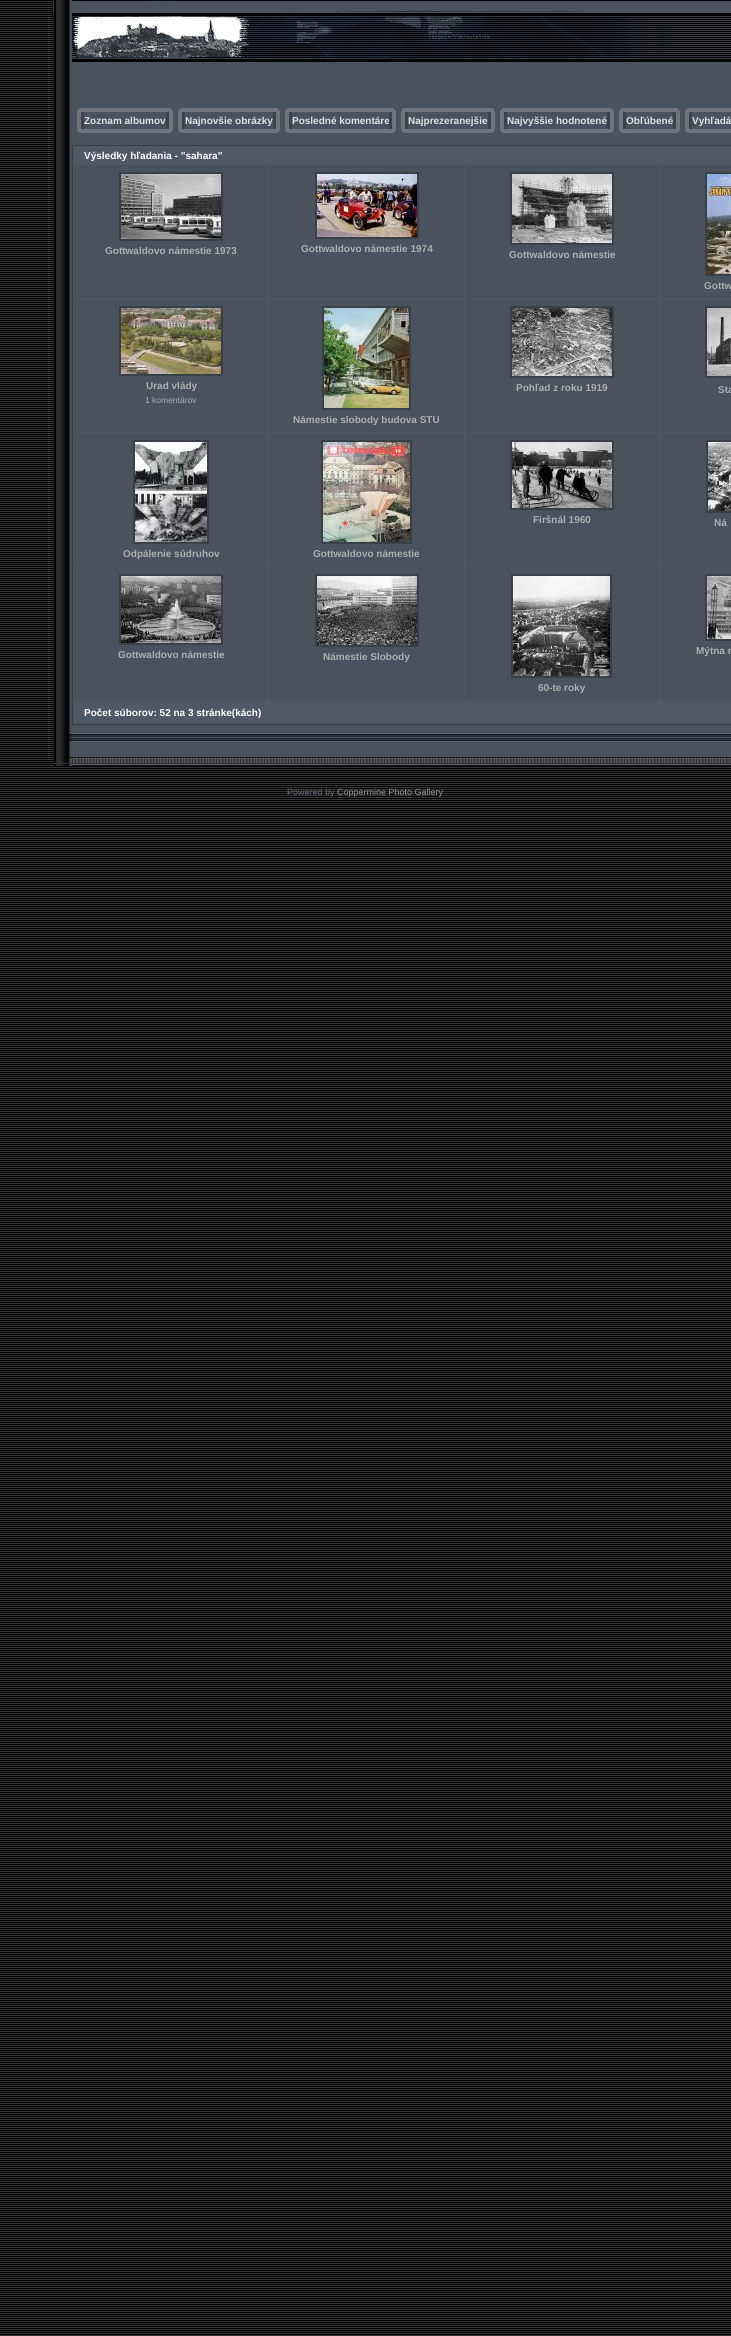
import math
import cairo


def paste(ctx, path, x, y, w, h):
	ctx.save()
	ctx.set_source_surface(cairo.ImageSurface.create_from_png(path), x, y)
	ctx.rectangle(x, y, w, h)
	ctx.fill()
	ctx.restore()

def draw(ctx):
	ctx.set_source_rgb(0, 0, 0)
	ctx.paint()
	paste(ctx, 'media/1.png', 0, 1, 731, 2335)
	ctx.set_source_rgb(0.2, 0.2, 0.2)
	ctx.rectangle(53, 0, 1, 13)
	ctx.fill()
	paste(ctx, 'media/2.png', 54, 0, 18, 62)
	paste(ctx, 'media/3.png', 72, 1, 659, 61)
	paste(ctx, 'media/4.png', 72, 0, 591, 58)
	paste(ctx, 'media/5.png', 54, 62, 18, 671)
	ctx.set_source_rgb(0.286, 0.322, 0.365)
	ctx.rectangle(72, 62, 659, 671)
	ctx.fill()
	paste(ctx, 'media/6.png', 77, 108, 7, 25)
	paste(ctx, 'media/7.png', 84, 108, 82, 25)
	ctx.select_font_face('Liberation Sans', cairo.FONT_SLANT_NORMAL, cairo.FONT_WEIGHT_BOLD)
	ctx.set_font_size(10)
	ctx.set_source_rgb(0.875, 0.875, 0.875)
	ctx.move_to(84, 124)
	ctx.show_text('Zoznam albumov')
	paste(ctx, 'media/8.png', 166, 108, 7, 25)
	paste(ctx, 'media/6.png', 178, 108, 7, 25)
	paste(ctx, 'media/9.png', 185, 108, 88, 25)
	ctx.move_to(185, 124)
	ctx.show_text('Najnovšie obrázky')
	paste(ctx, 'media/8.png', 273, 108, 7, 25)
	paste(ctx, 'media/6.png', 285, 108, 7, 25)
	paste(ctx, 'media/10.png', 292, 108, 97, 25)
	ctx.move_to(292, 124)
	ctx.show_text('Posledné komentáre')
	paste(ctx, 'media/8.png', 389, 108, 7, 25)
	paste(ctx, 'media/6.png', 401, 108, 7, 25)
	paste(ctx, 'media/11.png', 408, 108, 80, 25)
	ctx.move_to(408, 124)
	ctx.show_text('Najprezeranejšie')
	paste(ctx, 'media/8.png', 488, 108, 7, 25)
	paste(ctx, 'media/6.png', 500, 108, 7, 25)
	paste(ctx, 'media/12.png', 507, 108, 100, 25)
	ctx.move_to(507, 124)
	ctx.show_text('Najvyššie hodnotené')
	paste(ctx, 'media/8.png', 607, 108, 7, 25)
	paste(ctx, 'media/6.png', 619, 108, 7, 25)
	paste(ctx, 'media/13.png', 626, 108, 47, 25)
	ctx.move_to(626, 124)
	ctx.show_text('Obľúbené')
	paste(ctx, 'media/8.png', 673, 108, 7, 25)
	paste(ctx, 'media/6.png', 685, 108, 7, 25)
	paste(ctx, 'media/14.png', 692, 108, 39, 25)
	ctx.move_to(692, 124)
	ctx.show_text('Vyhľadá')
	ctx.set_source_rgb(0.31, 0.345, 0.392)
	ctx.rectangle(72.5, 145.5, 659, 579)
	ctx.fill_preserve()
	ctx.set_source_rgb(0.224, 0.251, 0.286)
	ctx.set_line_width(1)
	ctx.stroke()
	ctx.set_source_rgb(1, 1, 1)
	ctx.move_to(84, 159)
	ctx.show_text('Výsledky hľadania - "sahara"')
	ctx.set_source_rgb(0.286, 0.322, 0.365)
	ctx.rectangle(74, 165, 194, 133)
	ctx.fill()
	ctx.rectangle(120, 173, 102, 67)
	ctx.set_source_rgb(0.224, 0.251, 0.282)
	ctx.set_line_width(2)
	ctx.stroke()
	paste(ctx, 'media/15.png', 121, 174, 100, 65)
	ctx.set_source_rgb(0.682, 0.682, 0.682)
	ctx.move_to(105, 254)
	ctx.show_text('Gottwaldovo námestie 1973')
	ctx.set_source_rgb(0.286, 0.322, 0.365)
	ctx.rectangle(269, 165, 195, 133)
	ctx.fill()
	ctx.rectangle(316, 173, 102, 65)
	ctx.set_source_rgb(0.224, 0.251, 0.282)
	ctx.stroke()
	paste(ctx, 'media/16.png', 317, 174, 100, 63)
	ctx.set_source_rgb(0.682, 0.682, 0.682)
	ctx.move_to(301, 252)
	ctx.show_text('Gottwaldovo námestie 1974')
	ctx.set_source_rgb(0.286, 0.322, 0.365)
	ctx.rectangle(465, 165, 194, 133)
	ctx.fill()
	ctx.rectangle(511, 173, 102, 71)
	ctx.set_source_rgb(0.224, 0.251, 0.282)
	ctx.stroke()
	paste(ctx, 'media/17.png', 512, 174, 100, 69)
	ctx.set_source_rgb(0.682, 0.682, 0.682)
	ctx.move_to(509, 258)
	ctx.show_text('Gottwaldovo námestie')
	ctx.set_source_rgb(0.286, 0.322, 0.365)
	ctx.rectangle(660, 165, 71, 133)
	ctx.fill()
	ctx.rectangle(706, 173, 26, 102)
	ctx.set_source_rgb(0.224, 0.251, 0.282)
	ctx.stroke()
	paste(ctx, 'media/18.png', 707, 174, 24, 100)
	ctx.set_source_rgb(0.682, 0.682, 0.682)
	ctx.move_to(704, 289)
	ctx.show_text('Gottw')
	ctx.set_source_rgb(0.286, 0.322, 0.365)
	ctx.rectangle(74, 299, 194, 133)
	ctx.fill()
	ctx.rectangle(120, 307, 102, 68)
	ctx.set_source_rgb(0.224, 0.251, 0.282)
	ctx.stroke()
	paste(ctx, 'media/19.png', 121, 308, 100, 66)
	ctx.set_source_rgb(0.682, 0.682, 0.682)
	ctx.move_to(146, 389)
	ctx.show_text('Urad vlády')
	ctx.select_font_face('Liberation Sans')
	ctx.set_font_size(8.5)
	ctx.move_to(145, 403)
	ctx.show_text('1 komentárov')
	ctx.set_source_rgb(0.286, 0.322, 0.365)
	ctx.rectangle(465, 299, 194, 133)
	ctx.fill()
	ctx.rectangle(511, 307, 102, 70)
	ctx.set_source_rgb(0.224, 0.251, 0.282)
	ctx.stroke()
	paste(ctx, 'media/20.png', 512, 308, 100, 68)
	ctx.select_font_face('Liberation Sans', cairo.FONT_SLANT_NORMAL, cairo.FONT_WEIGHT_BOLD)
	ctx.set_font_size(10)
	ctx.set_source_rgb(0.682, 0.682, 0.682)
	ctx.move_to(516, 391)
	ctx.show_text('Pohľad z roku 1919')
	ctx.set_source_rgb(0.286, 0.322, 0.365)
	ctx.rectangle(660, 299, 71, 133)
	ctx.fill()
	ctx.rectangle(706, 307, 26, 70)
	ctx.set_source_rgb(0.224, 0.251, 0.282)
	ctx.stroke()
	paste(ctx, 'media/21.png', 707, 308, 24, 68)
	ctx.set_source_rgb(0.682, 0.682, 0.682)
	ctx.move_to(718, 393)
	ctx.show_text('Sta')
	ctx.set_source_rgb(0.286, 0.322, 0.365)
	ctx.rectangle(269, 299, 195, 133)
	ctx.fill()
	ctx.rectangle(323, 307, 87, 102)
	ctx.set_source_rgb(0.224, 0.251, 0.282)
	ctx.stroke()
	paste(ctx, 'media/22.png', 324, 308, 85, 100)
	ctx.set_source_rgb(0.682, 0.682, 0.682)
	ctx.move_to(293, 423)
	ctx.show_text('Námestie slobody budova STU')
	ctx.set_source_rgb(0.286, 0.322, 0.365)
	ctx.rectangle(465, 433, 194, 133)
	ctx.fill()
	ctx.rectangle(511, 441, 102, 68)
	ctx.set_source_rgb(0.224, 0.251, 0.282)
	ctx.stroke()
	paste(ctx, 'media/23.png', 512, 442, 100, 66)
	ctx.set_source_rgb(0.682, 0.682, 0.682)
	ctx.move_to(533, 523)
	ctx.show_text('Firšnál 1960')
	ctx.set_source_rgb(0.286, 0.322, 0.365)
	ctx.rectangle(660, 433, 71, 133)
	ctx.fill()
	ctx.rectangle(707, 441, 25, 71)
	ctx.set_source_rgb(0.224, 0.251, 0.282)
	ctx.stroke()
	paste(ctx, 'media/24.png', 708, 442, 23, 69)
	ctx.set_source_rgb(0.682, 0.682, 0.682)
	ctx.move_to(714, 526)
	ctx.show_text('Ná')
	ctx.set_source_rgb(0.286, 0.322, 0.365)
	ctx.rectangle(74, 433, 194, 133)
	ctx.fill()
	ctx.rectangle(134, 441, 74, 102)
	ctx.set_source_rgb(0.224, 0.251, 0.282)
	ctx.stroke()
	paste(ctx, 'media/25.png', 135, 442, 72, 100)
	ctx.set_source_rgb(0.682, 0.682, 0.682)
	ctx.move_to(123, 557)
	ctx.show_text('Odpálenie súdruhov')
	ctx.set_source_rgb(0.286, 0.322, 0.365)
	ctx.rectangle(269, 433, 195, 133)
	ctx.fill()
	ctx.rectangle(322, 441, 89, 102)
	ctx.set_source_rgb(0.224, 0.251, 0.282)
	ctx.stroke()
	paste(ctx, 'media/26.png', 323, 442, 87, 100)
	ctx.set_source_rgb(0.682, 0.682, 0.682)
	ctx.move_to(313, 557)
	ctx.show_text('Gottwaldovo námestie')
	ctx.set_source_rgb(0.286, 0.322, 0.365)
	ctx.rectangle(74, 567, 194, 133)
	ctx.fill()
	ctx.rectangle(120, 575, 102, 69)
	ctx.set_source_rgb(0.224, 0.251, 0.282)
	ctx.stroke()
	paste(ctx, 'media/27.png', 121, 576, 100, 67)
	ctx.set_source_rgb(0.682, 0.682, 0.682)
	ctx.move_to(118, 658)
	ctx.show_text('Gottwaldovo námestie')
	ctx.set_source_rgb(0.286, 0.322, 0.365)
	ctx.rectangle(269, 567, 195, 133)
	ctx.fill()
	ctx.rectangle(316, 575, 102, 71)
	ctx.set_source_rgb(0.224, 0.251, 0.282)
	ctx.stroke()
	paste(ctx, 'media/28.png', 317, 576, 100, 69)
	ctx.set_source_rgb(0.682, 0.682, 0.682)
	ctx.move_to(323, 660)
	ctx.show_text('Námestie Slobody')
	ctx.set_source_rgb(0.286, 0.322, 0.365)
	ctx.rectangle(660, 567, 71, 133)
	ctx.fill()
	ctx.rectangle(706, 575, 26, 65)
	ctx.set_source_rgb(0.224, 0.251, 0.282)
	ctx.stroke()
	paste(ctx, 'media/29.png', 707, 576, 24, 63)
	ctx.set_source_rgb(0.682, 0.682, 0.682)
	ctx.move_to(696, 654)
	ctx.show_text('Mýtna n')
	ctx.set_source_rgb(0.286, 0.322, 0.365)
	ctx.rectangle(465, 567, 194, 133)
	ctx.fill()
	ctx.rectangle(512, 575, 99, 102)
	ctx.set_source_rgb(0.224, 0.251, 0.282)
	ctx.stroke()
	paste(ctx, 'media/30.png', 513, 576, 97, 100)
	ctx.set_source_rgb(0.682, 0.682, 0.682)
	ctx.move_to(538, 691)
	ctx.show_text('60-te roky')
	ctx.set_source_rgb(1, 1, 1)
	ctx.move_to(84, 716)
	ctx.show_text('Počet súborov: 52 na 3 stránke(kách)')
	paste(ctx, 'media/31.png', 54, 764, 18, 2)
	paste(ctx, 'media/32.png', 54, 733, 18, 31)
	paste(ctx, 'media/33.png', 72, 733, 659, 33)
	ctx.select_font_face('Liberation Sans')
	ctx.set_font_size(9)
	ctx.set_source_rgb(0.38, 0.424, 0.478)
	ctx.move_to(287, 795)
	ctx.show_text('Powered by')
	ctx.set_source_rgb(0.58, 0.58, 0.58)
	ctx.move_to(337, 795)
	ctx.show_text('Coppermine Photo Gallery')


surface = cairo.ImageSurface(cairo.FORMAT_RGB24, 731, 2336)
ctx = cairo.Context(surface)
options = cairo.FontOptions()
options.set_hint_metrics(cairo.HINT_METRICS_OFF)
options.set_hint_style(cairo.HINT_STYLE_NONE)
ctx.set_font_options(options)
ctx.set_miter_limit(4)
draw(ctx)
surface.write_to_png('image.png')
